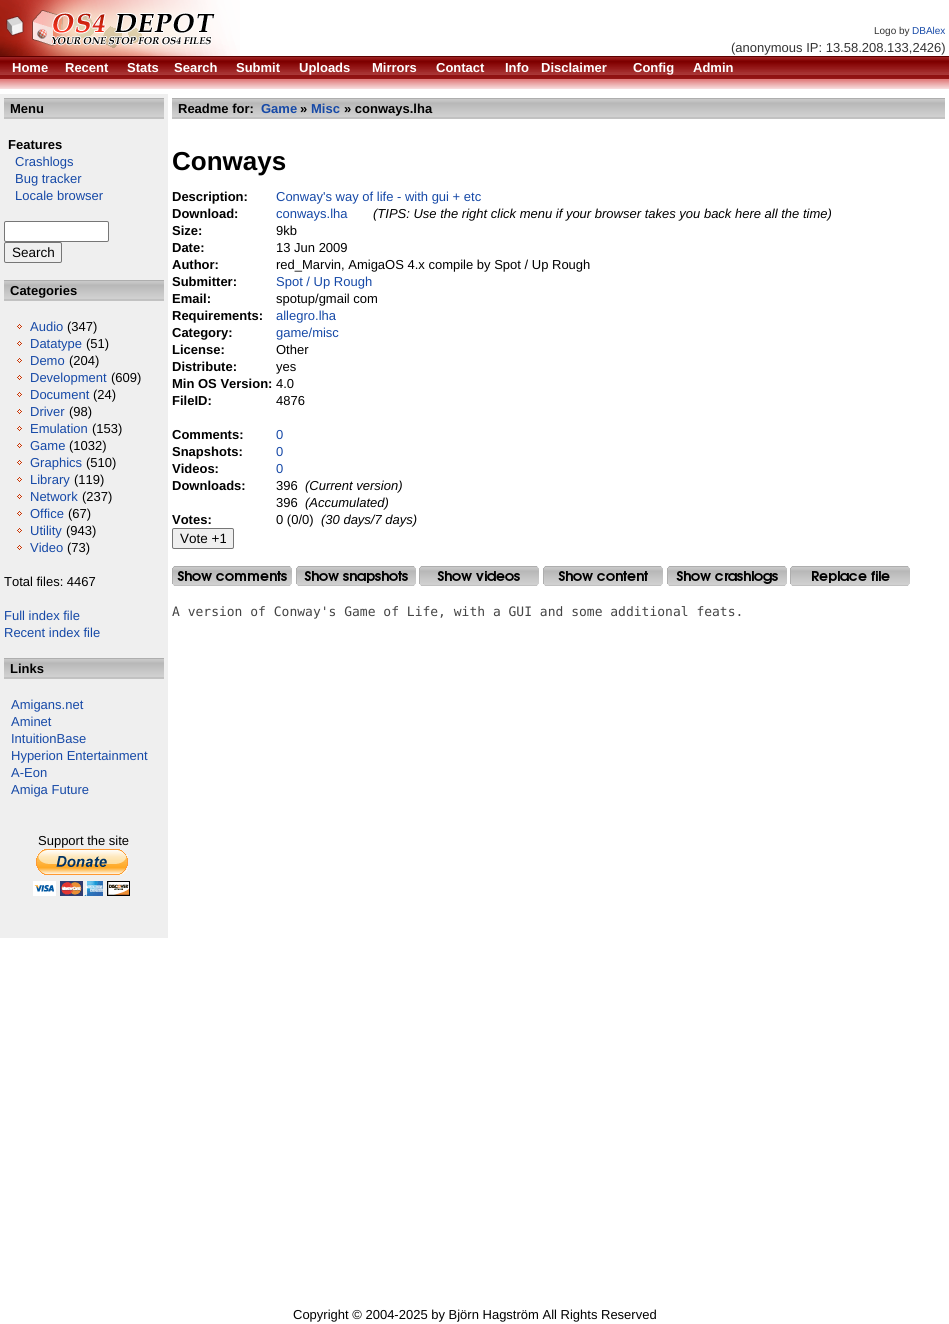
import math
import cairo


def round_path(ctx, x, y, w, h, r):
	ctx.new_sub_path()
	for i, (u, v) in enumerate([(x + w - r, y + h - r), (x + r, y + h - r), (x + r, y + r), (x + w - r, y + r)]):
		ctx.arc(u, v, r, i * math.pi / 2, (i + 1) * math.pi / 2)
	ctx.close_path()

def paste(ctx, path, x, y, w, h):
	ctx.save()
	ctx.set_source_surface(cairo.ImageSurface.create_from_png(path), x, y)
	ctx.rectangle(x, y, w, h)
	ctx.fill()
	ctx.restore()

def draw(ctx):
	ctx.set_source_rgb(1, 1, 1)
	ctx.paint()
	paste(ctx, 'media/1.png', 0, 0, 240, 56)
	ctx.select_font_face('Liberation Sans')
	ctx.set_font_size(10)
	ctx.set_source_rgb(0.2, 0.2, 0.2)
	ctx.move_to(874, 34)
	ctx.show_text('Logo by')
	ctx.set_source_rgb(0.086, 0.286, 0.655)
	ctx.move_to(912, 34)
	ctx.show_text('DBAlex')
	ctx.set_font_size(13)
	ctx.set_source_rgb(0.2, 0.2, 0.2)
	ctx.move_to(731, 52)
	ctx.show_text('(anonymous IP: 13.58.208.133,2426)')
	paste(ctx, 'media/2.png', 0, 56, 949, 23)
	ctx.select_font_face('Liberation Sans', cairo.FONT_SLANT_NORMAL, cairo.FONT_WEIGHT_BOLD)
	ctx.set_source_rgb(1, 1, 1)
	for x, y, s in [
		(12, 72, 'Home'),
		(65, 72, 'Recent'),
		(127, 72, 'Stats'),
		(174, 72, 'Search'),
		(236, 72, 'Submit'),
		(299, 72, 'Uploads'),
		(372, 72, 'Mirrors'),
		(436, 72, 'Contact'),
		(505, 72, 'Info'),
		(541, 72, 'Disclaimer'),
		(633, 72, 'Config'),
		(693, 72, 'Admin'),
	]:
		ctx.move_to(x, y)
		ctx.show_text(s)
	ctx.set_source_rgb(0.882, 0.502, 0.502)
	ctx.rectangle(0, 79, 949, 1)
	ctx.fill()
	paste(ctx, 'media/3.png', 0, 80, 949, 9)
	ctx.set_source_rgb(0.937, 0.937, 0.937)
	ctx.rectangle(0, 94, 168, 844)
	ctx.fill()
	paste(ctx, 'media/4.png', 4, 98, 160, 21)
	ctx.set_source_rgb(0, 0, 0)
	ctx.move_to(10, 113)
	ctx.show_text('Menu')
	ctx.move_to(8, 149)
	ctx.show_text('Features')
	ctx.select_font_face('Liberation Sans')
	ctx.set_source_rgb(0.086, 0.286, 0.655)
	for x, y, s in [
		(15, 166, 'Crashlogs'),
		(15, 183, 'Bug tracker'),
		(15, 200, 'Locale browser'),
	]:
		ctx.move_to(x, y)
		ctx.show_text(s)
	ctx.set_source_rgb(1, 1, 1)
	round_path(ctx, 4.5, 221.5, 104, 20, 1.5)
	ctx.fill_preserve()
	ctx.set_source_rgb(0.463, 0.463, 0.463)
	ctx.set_line_width(1)
	ctx.stroke()
	round_path(ctx, 4.5, 242.5, 57, 20, 1.5)
	ctx.stroke()
	ctx.set_font_size(13.5)
	ctx.set_source_rgb(0, 0, 0)
	ctx.move_to(12, 257)
	ctx.show_text('Search')
	paste(ctx, 'media/4.png', 4, 280, 160, 21)
	ctx.select_font_face('Liberation Sans', cairo.FONT_SLANT_NORMAL, cairo.FONT_WEIGHT_BOLD)
	ctx.set_font_size(13)
	ctx.move_to(10, 295)
	ctx.show_text('Categories')
	paste(ctx, 'media/5.png', 17, 324, 5, 5)
	ctx.select_font_face('Liberation Sans')
	ctx.set_source_rgb(0.086, 0.286, 0.655)
	ctx.move_to(30, 331)
	ctx.show_text('Audio')
	ctx.set_source_rgb(0, 0, 0)
	ctx.move_to(67, 331)
	ctx.show_text('(347)')
	paste(ctx, 'media/5.png', 17, 341, 5, 5)
	ctx.set_source_rgb(0.086, 0.286, 0.655)
	ctx.move_to(30, 348)
	ctx.show_text('Datatype')
	ctx.set_source_rgb(0, 0, 0)
	ctx.move_to(86, 348)
	ctx.show_text('(51)')
	paste(ctx, 'media/5.png', 17, 358, 5, 5)
	ctx.set_source_rgb(0.086, 0.286, 0.655)
	ctx.move_to(30, 365)
	ctx.show_text('Demo')
	ctx.set_source_rgb(0, 0, 0)
	ctx.move_to(69, 365)
	ctx.show_text('(204)')
	paste(ctx, 'media/5.png', 17, 375, 5, 5)
	ctx.set_source_rgb(0.086, 0.286, 0.655)
	ctx.move_to(30, 382)
	ctx.show_text('Development')
	ctx.set_source_rgb(0, 0, 0)
	ctx.move_to(111, 382)
	ctx.show_text('(609)')
	paste(ctx, 'media/5.png', 17, 392, 5, 5)
	ctx.set_source_rgb(0.086, 0.286, 0.655)
	ctx.move_to(30, 399)
	ctx.show_text('Document')
	ctx.set_source_rgb(0, 0, 0)
	ctx.move_to(93, 399)
	ctx.show_text('(24)')
	paste(ctx, 'media/5.png', 17, 409, 5, 5)
	ctx.set_source_rgb(0.086, 0.286, 0.655)
	ctx.move_to(30, 416)
	ctx.show_text('Driver')
	ctx.set_source_rgb(0, 0, 0)
	ctx.move_to(69, 416)
	ctx.show_text('(98)')
	paste(ctx, 'media/5.png', 17, 426, 5, 5)
	ctx.set_source_rgb(0.086, 0.286, 0.655)
	ctx.move_to(30, 433)
	ctx.show_text('Emulation')
	ctx.set_source_rgb(0, 0, 0)
	ctx.move_to(92, 433)
	ctx.show_text('(153)')
	paste(ctx, 'media/5.png', 17, 443, 5, 5)
	ctx.set_source_rgb(0.086, 0.286, 0.655)
	ctx.move_to(30, 450)
	ctx.show_text('Game')
	ctx.set_source_rgb(0, 0, 0)
	ctx.move_to(69, 450)
	ctx.show_text('(1032)')
	paste(ctx, 'media/5.png', 17, 460, 5, 5)
	ctx.set_source_rgb(0.086, 0.286, 0.655)
	ctx.move_to(30, 467)
	ctx.show_text('Graphics')
	ctx.set_source_rgb(0, 0, 0)
	ctx.move_to(86, 467)
	ctx.show_text('(510)')
	paste(ctx, 'media/5.png', 17, 477, 5, 5)
	ctx.set_source_rgb(0.086, 0.286, 0.655)
	ctx.move_to(30, 484)
	ctx.show_text('Library')
	ctx.set_source_rgb(0, 0, 0)
	ctx.move_to(74, 484)
	ctx.show_text('(119)')
	paste(ctx, 'media/5.png', 17, 494, 5, 5)
	ctx.set_source_rgb(0.086, 0.286, 0.655)
	ctx.move_to(30, 501)
	ctx.show_text('Network')
	ctx.set_source_rgb(0, 0, 0)
	ctx.move_to(82, 501)
	ctx.show_text('(237)')
	paste(ctx, 'media/5.png', 17, 511, 5, 5)
	ctx.set_source_rgb(0.086, 0.286, 0.655)
	ctx.move_to(30, 518)
	ctx.show_text('Office')
	ctx.set_source_rgb(0, 0, 0)
	ctx.move_to(68, 518)
	ctx.show_text('(67)')
	paste(ctx, 'media/5.png', 17, 528, 5, 5)
	ctx.set_source_rgb(0.086, 0.286, 0.655)
	ctx.move_to(30, 535)
	ctx.show_text('Utility')
	ctx.set_source_rgb(0, 0, 0)
	ctx.move_to(66, 535)
	ctx.show_text('(943)')
	paste(ctx, 'media/5.png', 17, 545, 5, 5)
	ctx.set_source_rgb(0.086, 0.286, 0.655)
	ctx.move_to(30, 552)
	ctx.show_text('Video')
	ctx.set_source_rgb(0, 0, 0)
	ctx.move_to(67, 552)
	ctx.show_text('(73)')
	ctx.move_to(4, 586)
	ctx.show_text('Total files: 4467')
	ctx.set_source_rgb(0.086, 0.286, 0.655)
	ctx.move_to(4, 620)
	ctx.show_text('Full index file')
	ctx.move_to(4, 637)
	ctx.show_text('Recent index file')
	paste(ctx, 'media/4.png', 4, 658, 160, 21)
	ctx.select_font_face('Liberation Sans', cairo.FONT_SLANT_NORMAL, cairo.FONT_WEIGHT_BOLD)
	ctx.set_source_rgb(0, 0, 0)
	ctx.move_to(10, 673)
	ctx.show_text('Links')
	ctx.select_font_face('Liberation Sans')
	ctx.set_source_rgb(0.086, 0.286, 0.655)
	for x, y, s in [
		(11, 709, 'Amigans.net'),
		(11, 726, 'Aminet'),
		(11, 743, 'IntuitionBase'),
		(11, 760, 'Hyperion Entertainment'),
		(11, 777, 'A-Eon'),
		(11, 794, 'Amiga Future'),
	]:
		ctx.move_to(x, y)
		ctx.show_text(s)
	ctx.set_source_rgb(0, 0, 0)
	ctx.move_to(38, 845)
	ctx.show_text('Support the site')
	paste(ctx, 'media/6.png', 33, 849, 97, 47)
	paste(ctx, 'media/7.png', 172, 98, 773, 21)
	ctx.select_font_face('Liberation Sans', cairo.FONT_SLANT_NORMAL, cairo.FONT_WEIGHT_BOLD)
	ctx.move_to(178, 113)
	ctx.show_text('Readme for:')
	ctx.set_source_rgb(0.086, 0.286, 0.655)
	ctx.move_to(261, 113)
	ctx.show_text('Game')
	ctx.set_source_rgb(0, 0, 0)
	ctx.move_to(300, 113)
	ctx.show_text('»')
	ctx.set_source_rgb(0.086, 0.286, 0.655)
	ctx.move_to(311, 113)
	ctx.show_text('Misc')
	ctx.set_source_rgb(0, 0, 0)
	ctx.move_to(344, 113)
	ctx.show_text('» conways.lha')
	ctx.set_font_size(26)
	ctx.move_to(172, 170)
	ctx.show_text('Conways')
	ctx.set_font_size(13)
	ctx.move_to(172, 201)
	ctx.show_text('Description:')
	ctx.select_font_face('Liberation Sans')
	ctx.set_source_rgb(0.086, 0.286, 0.655)
	ctx.move_to(276, 201)
	ctx.show_text('Conway\'s way of life - with gui + etc')
	ctx.select_font_face('Liberation Sans', cairo.FONT_SLANT_NORMAL, cairo.FONT_WEIGHT_BOLD)
	ctx.set_source_rgb(0, 0, 0)
	ctx.move_to(172, 218)
	ctx.show_text('Download:')
	ctx.select_font_face('Liberation Sans')
	ctx.set_source_rgb(0.086, 0.286, 0.655)
	ctx.move_to(276, 218)
	ctx.show_text('conways.lha')
	ctx.select_font_face('Liberation Sans', cairo.FONT_SLANT_ITALIC)
	ctx.set_source_rgb(0, 0, 0)
	ctx.move_to(373, 218)
	ctx.show_text('(TIPS: Use the right click menu if your browser takes you back here all the time)')
	ctx.select_font_face('Liberation Sans', cairo.FONT_SLANT_NORMAL, cairo.FONT_WEIGHT_BOLD)
	ctx.move_to(172, 235)
	ctx.show_text('Size:')
	ctx.select_font_face('Liberation Sans')
	ctx.move_to(276, 235)
	ctx.show_text('9kb')
	ctx.select_font_face('Liberation Sans', cairo.FONT_SLANT_NORMAL, cairo.FONT_WEIGHT_BOLD)
	ctx.move_to(172, 252)
	ctx.show_text('Date:')
	ctx.select_font_face('Liberation Sans')
	ctx.move_to(276, 252)
	ctx.show_text('13 Jun 2009')
	ctx.select_font_face('Liberation Sans', cairo.FONT_SLANT_NORMAL, cairo.FONT_WEIGHT_BOLD)
	ctx.move_to(172, 269)
	ctx.show_text('Author:')
	ctx.select_font_face('Liberation Sans')
	ctx.move_to(276, 269)
	ctx.show_text('red_Marvin, AmigaOS 4.x compile by Spot / Up Rough')
	ctx.select_font_face('Liberation Sans', cairo.FONT_SLANT_NORMAL, cairo.FONT_WEIGHT_BOLD)
	ctx.move_to(172, 286)
	ctx.show_text('Submitter:')
	ctx.select_font_face('Liberation Sans')
	ctx.set_source_rgb(0.086, 0.286, 0.655)
	ctx.move_to(276, 286)
	ctx.show_text('Spot / Up Rough')
	ctx.select_font_face('Liberation Sans', cairo.FONT_SLANT_NORMAL, cairo.FONT_WEIGHT_BOLD)
	ctx.set_source_rgb(0, 0, 0)
	ctx.move_to(172, 303)
	ctx.show_text('Email:')
	ctx.select_font_face('Liberation Sans')
	ctx.move_to(276, 303)
	ctx.show_text('spotup/gmail com')
	ctx.select_font_face('Liberation Sans', cairo.FONT_SLANT_NORMAL, cairo.FONT_WEIGHT_BOLD)
	ctx.move_to(172, 320)
	ctx.show_text('Requirements:')
	ctx.select_font_face('Liberation Sans')
	ctx.set_source_rgb(0.086, 0.286, 0.655)
	ctx.move_to(276, 320)
	ctx.show_text('allegro.lha')
	ctx.select_font_face('Liberation Sans', cairo.FONT_SLANT_NORMAL, cairo.FONT_WEIGHT_BOLD)
	ctx.set_source_rgb(0, 0, 0)
	ctx.move_to(172, 337)
	ctx.show_text('Category:')
	ctx.select_font_face('Liberation Sans')
	ctx.set_source_rgb(0.086, 0.286, 0.655)
	ctx.move_to(276, 337)
	ctx.show_text('game/misc')
	ctx.select_font_face('Liberation Sans', cairo.FONT_SLANT_NORMAL, cairo.FONT_WEIGHT_BOLD)
	ctx.set_source_rgb(0, 0, 0)
	ctx.move_to(172, 354)
	ctx.show_text('License:')
	ctx.select_font_face('Liberation Sans')
	ctx.move_to(276, 354)
	ctx.show_text('Other')
	ctx.select_font_face('Liberation Sans', cairo.FONT_SLANT_NORMAL, cairo.FONT_WEIGHT_BOLD)
	ctx.move_to(172, 371)
	ctx.show_text('Distribute:')
	ctx.select_font_face('Liberation Sans')
	ctx.move_to(276, 371)
	ctx.show_text('yes')
	ctx.select_font_face('Liberation Sans', cairo.FONT_SLANT_NORMAL, cairo.FONT_WEIGHT_BOLD)
	ctx.move_to(172, 388)
	ctx.show_text('Min OS Version:')
	ctx.select_font_face('Liberation Sans')
	ctx.move_to(276, 388)
	ctx.show_text('4.0')
	ctx.select_font_face('Liberation Sans', cairo.FONT_SLANT_NORMAL, cairo.FONT_WEIGHT_BOLD)
	ctx.move_to(172, 405)
	ctx.show_text('FileID:')
	ctx.select_font_face('Liberation Sans')
	ctx.move_to(276, 405)
	ctx.show_text('4876')
	ctx.select_font_face('Liberation Sans', cairo.FONT_SLANT_NORMAL, cairo.FONT_WEIGHT_BOLD)
	ctx.move_to(172, 439)
	ctx.show_text('Comments:')
	ctx.select_font_face('Liberation Sans')
	ctx.set_source_rgb(0.086, 0.286, 0.655)
	ctx.move_to(276, 439)
	ctx.show_text('0')
	ctx.select_font_face('Liberation Sans', cairo.FONT_SLANT_NORMAL, cairo.FONT_WEIGHT_BOLD)
	ctx.set_source_rgb(0, 0, 0)
	ctx.move_to(172, 456)
	ctx.show_text('Snapshots:')
	ctx.select_font_face('Liberation Sans')
	ctx.set_source_rgb(0.086, 0.286, 0.655)
	ctx.move_to(276, 456)
	ctx.show_text('0')
	ctx.select_font_face('Liberation Sans', cairo.FONT_SLANT_NORMAL, cairo.FONT_WEIGHT_BOLD)
	ctx.set_source_rgb(0, 0, 0)
	ctx.move_to(172, 473)
	ctx.show_text('Videos:')
	ctx.select_font_face('Liberation Sans')
	ctx.set_source_rgb(0.086, 0.286, 0.655)
	ctx.move_to(276, 473)
	ctx.show_text('0')
	ctx.select_font_face('Liberation Sans', cairo.FONT_SLANT_NORMAL, cairo.FONT_WEIGHT_BOLD)
	ctx.set_source_rgb(0, 0, 0)
	ctx.move_to(172, 490)
	ctx.show_text('Downloads:')
	ctx.select_font_face('Liberation Sans')
	ctx.move_to(276, 490)
	ctx.show_text('396')
	ctx.select_font_face('Liberation Sans', cairo.FONT_SLANT_ITALIC)
	ctx.move_to(305, 490)
	ctx.show_text('(Current version)')
	ctx.select_font_face('Liberation Sans')
	ctx.move_to(276, 507)
	ctx.show_text('396')
	ctx.select_font_face('Liberation Sans', cairo.FONT_SLANT_ITALIC)
	ctx.move_to(305, 507)
	ctx.show_text('(Accumulated)')
	ctx.select_font_face('Liberation Sans', cairo.FONT_SLANT_NORMAL, cairo.FONT_WEIGHT_BOLD)
	ctx.move_to(172, 524)
	ctx.show_text('Votes:')
	ctx.select_font_face('Liberation Sans')
	ctx.move_to(276, 524)
	ctx.show_text('0 (0/0)')
	ctx.select_font_face('Liberation Sans', cairo.FONT_SLANT_ITALIC)
	ctx.move_to(321, 524)
	ctx.show_text('(30 days/7 days)')
	ctx.set_source_rgb(0.937, 0.937, 0.937)
	round_path(ctx, 172.5, 528.5, 61, 20, 1.5)
	ctx.fill_preserve()
	ctx.set_source_rgb(0.463, 0.463, 0.463)
	ctx.stroke()
	ctx.select_font_face('Liberation Sans')
	ctx.set_font_size(13.5)
	ctx.set_source_rgb(0, 0, 0)
	ctx.move_to(180, 543)
	ctx.show_text('Vote +1')
	paste(ctx, 'media/8.png', 172, 566, 120, 20)
	paste(ctx, 'media/9.png', 296, 566, 120, 20)
	paste(ctx, 'media/10.png', 419, 566, 120, 20)
	paste(ctx, 'media/11.png', 543, 566, 120, 20)
	paste(ctx, 'media/12.png', 667, 566, 120, 20)
	paste(ctx, 'media/13.png', 790, 566, 120, 20)
	ctx.select_font_face('DejaVu Sans Mono')
	ctx.set_font_size(13)
	ctx.set_source_rgb(0.267, 0.267, 0.267)
	ctx.move_to(172, 616)
	ctx.show_text('A version of Conway\'s Game of Life, with a GUI and some additional feats.')
	ctx.select_font_face('Liberation Sans')
	ctx.set_source_rgb(0, 0, 0)
	ctx.move_to(293, 1319)
	ctx.show_text('Copyright © 2004-2025 by Björn Hagström All Rights Reserved')


surface = cairo.ImageSurface(cairo.FORMAT_RGB24, 949, 1324)
ctx = cairo.Context(surface)
options = cairo.FontOptions()
options.set_hint_metrics(cairo.HINT_METRICS_OFF)
options.set_hint_style(cairo.HINT_STYLE_NONE)
ctx.set_font_options(options)
ctx.set_miter_limit(4)
draw(ctx)
surface.write_to_png('image.png')
